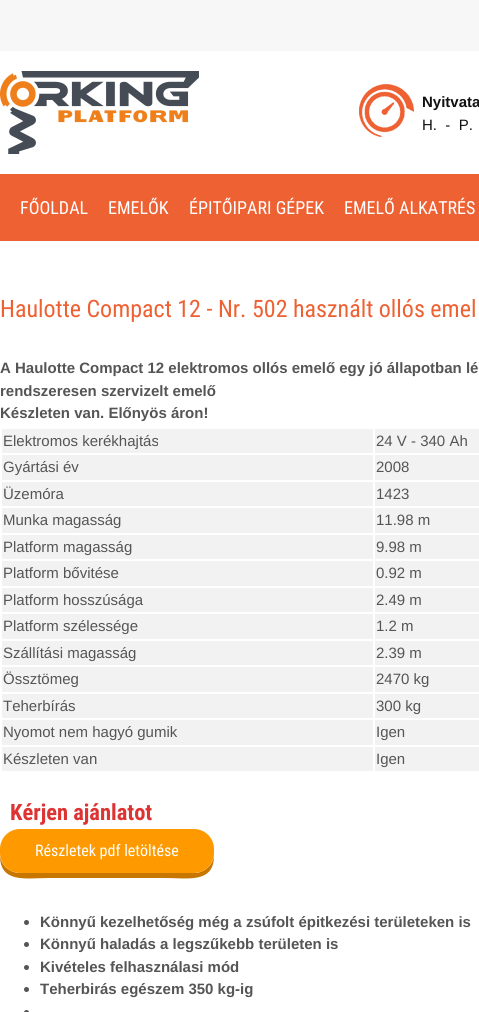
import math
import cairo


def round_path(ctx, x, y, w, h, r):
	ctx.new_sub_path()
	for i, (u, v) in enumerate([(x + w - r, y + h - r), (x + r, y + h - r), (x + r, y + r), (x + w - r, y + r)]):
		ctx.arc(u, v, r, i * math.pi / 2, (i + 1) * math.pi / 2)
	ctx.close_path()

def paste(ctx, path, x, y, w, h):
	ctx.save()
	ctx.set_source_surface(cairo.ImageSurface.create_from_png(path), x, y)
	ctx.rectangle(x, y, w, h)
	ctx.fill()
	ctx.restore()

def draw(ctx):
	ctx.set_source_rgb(0.965, 0.965, 0.965)
	ctx.paint()
	ctx.set_source_rgb(1, 1, 1)
	ctx.rectangle(0, 51, 479, 123)
	ctx.fill()
	paste(ctx, 'media/1.png', 0, 71, 199, 83)
	paste(ctx, 'media/2.png', 359, 84, 55, 53)
	ctx.select_font_face('Liberation Sans', cairo.FONT_SLANT_NORMAL, cairo.FONT_WEIGHT_BOLD)
	ctx.set_font_size(15)
	ctx.set_source_rgb(0.067, 0.067, 0.067)
	ctx.move_to(422, 107)
	ctx.show_text('Nyitvata')
	ctx.select_font_face('Liberation Sans')
	ctx.move_to(422, 130)
	ctx.show_text('H.  -  P.')
	ctx.set_source_rgb(0.933, 0.38, 0.2)
	ctx.rectangle(0, 174, 479, 67)
	ctx.fill()
	ctx.select_font_face('Roboto Condensed')
	ctx.set_font_size(18)
	ctx.set_source_rgb(1, 1, 1)
	for x, y, s in [
		(20, 214, 'FŐOLDAL'),
		(108, 214, 'EMELŐK'),
		(189, 214, 'ÉPITŐIPARI GÉPEK'),
		(344, 214, 'EMELŐ ALKATRÉS'),
	]:
		ctx.move_to(x, y)
		ctx.show_text(s)
	ctx.rectangle(0, 241, 479, 771)
	ctx.fill()
	ctx.set_font_size(24)
	ctx.set_source_rgb(0.933, 0.38, 0.2)
	ctx.move_to(0, 317)
	ctx.show_text('Haulotte Compact 12 - Nr. 502 használt ollós emel')
	ctx.select_font_face('Liberation Sans', cairo.FONT_SLANT_NORMAL, cairo.FONT_WEIGHT_BOLD)
	ctx.set_font_size(15)
	ctx.set_source_rgb(0.333, 0.333, 0.333)
	for x, y, s in [
		(0, 373, 'A Haulotte Compact 12 elektromos ollós emelő egy jó állapotban lé'),
		(0, 396, 'rendszeresen szervizelt emelő'),
		(0, 418, 'Készleten van. Előnyös áron!'),
	]:
		ctx.move_to(x, y)
		ctx.show_text(s)
	ctx.set_source_rgb(0.949, 0.949, 0.949)
	ctx.rectangle(2, 429, 371, 24)
	ctx.fill()
	ctx.select_font_face('Liberation Sans')
	ctx.set_source_rgb(0.333, 0.333, 0.333)
	ctx.move_to(3, 446)
	ctx.show_text('Elektromos kerékhajtás')
	ctx.set_source_rgb(0.949, 0.949, 0.949)
	ctx.rectangle(375, 429, 104, 24)
	ctx.fill()
	ctx.set_source_rgb(0.333, 0.333, 0.333)
	ctx.move_to(376, 446)
	ctx.show_text('24 V - 340 Ah')
	ctx.set_source_rgb(0.949, 0.949, 0.949)
	ctx.rectangle(2, 455, 371, 25)
	ctx.fill()
	ctx.set_source_rgb(0.333, 0.333, 0.333)
	ctx.move_to(3, 472)
	ctx.show_text('Gyártási év')
	ctx.set_source_rgb(0.949, 0.949, 0.949)
	ctx.rectangle(375, 455, 104, 25)
	ctx.fill()
	ctx.set_source_rgb(0.333, 0.333, 0.333)
	ctx.move_to(376, 472)
	ctx.show_text('2008')
	ctx.set_source_rgb(0.949, 0.949, 0.949)
	ctx.rectangle(2, 482, 371, 24)
	ctx.fill()
	ctx.set_source_rgb(0.333, 0.333, 0.333)
	ctx.move_to(3, 499)
	ctx.show_text('Üzemóra')
	ctx.set_source_rgb(0.949, 0.949, 0.949)
	ctx.rectangle(375, 482, 104, 24)
	ctx.fill()
	ctx.set_source_rgb(0.333, 0.333, 0.333)
	ctx.move_to(376, 499)
	ctx.show_text('1423')
	ctx.set_source_rgb(0.949, 0.949, 0.949)
	ctx.rectangle(2, 508, 371, 25)
	ctx.fill()
	ctx.set_source_rgb(0.333, 0.333, 0.333)
	ctx.move_to(3, 525)
	ctx.show_text('Munka magasság')
	ctx.set_source_rgb(0.949, 0.949, 0.949)
	ctx.rectangle(375, 508, 104, 25)
	ctx.fill()
	ctx.set_source_rgb(0.333, 0.333, 0.333)
	ctx.move_to(376, 525)
	ctx.show_text('11.98 m')
	ctx.set_source_rgb(0.949, 0.949, 0.949)
	ctx.rectangle(2, 535, 371, 24)
	ctx.fill()
	ctx.set_source_rgb(0.333, 0.333, 0.333)
	ctx.move_to(3, 552)
	ctx.show_text('Platform magasság')
	ctx.set_source_rgb(0.949, 0.949, 0.949)
	ctx.rectangle(375, 535, 104, 24)
	ctx.fill()
	ctx.set_source_rgb(0.333, 0.333, 0.333)
	ctx.move_to(376, 552)
	ctx.show_text('9.98 m')
	ctx.set_source_rgb(0.949, 0.949, 0.949)
	ctx.rectangle(2, 561, 371, 25)
	ctx.fill()
	ctx.set_source_rgb(0.333, 0.333, 0.333)
	ctx.move_to(3, 578)
	ctx.show_text('Platform bővitése')
	ctx.set_source_rgb(0.949, 0.949, 0.949)
	ctx.rectangle(375, 561, 104, 25)
	ctx.fill()
	ctx.set_source_rgb(0.333, 0.333, 0.333)
	ctx.move_to(376, 578)
	ctx.show_text('0.92 m')
	ctx.set_source_rgb(0.949, 0.949, 0.949)
	ctx.rectangle(2, 588, 371, 24)
	ctx.fill()
	ctx.set_source_rgb(0.333, 0.333, 0.333)
	ctx.move_to(3, 605)
	ctx.show_text('Platform hosszúsága')
	ctx.set_source_rgb(0.949, 0.949, 0.949)
	ctx.rectangle(375, 588, 104, 24)
	ctx.fill()
	ctx.set_source_rgb(0.333, 0.333, 0.333)
	ctx.move_to(376, 605)
	ctx.show_text('2.49 m')
	ctx.set_source_rgb(0.949, 0.949, 0.949)
	ctx.rectangle(2, 614, 371, 25)
	ctx.fill()
	ctx.set_source_rgb(0.333, 0.333, 0.333)
	ctx.move_to(3, 631)
	ctx.show_text('Platform szélessége')
	ctx.set_source_rgb(0.949, 0.949, 0.949)
	ctx.rectangle(375, 614, 104, 25)
	ctx.fill()
	ctx.set_source_rgb(0.333, 0.333, 0.333)
	ctx.move_to(376, 631)
	ctx.show_text('1.2 m')
	ctx.set_source_rgb(0.949, 0.949, 0.949)
	ctx.rectangle(2, 641, 371, 24)
	ctx.fill()
	ctx.set_source_rgb(0.333, 0.333, 0.333)
	ctx.move_to(3, 658)
	ctx.show_text('Szállítási magasság')
	ctx.set_source_rgb(0.949, 0.949, 0.949)
	ctx.rectangle(375, 641, 104, 24)
	ctx.fill()
	ctx.set_source_rgb(0.333, 0.333, 0.333)
	ctx.move_to(376, 658)
	ctx.show_text('2.39 m')
	ctx.set_source_rgb(0.949, 0.949, 0.949)
	ctx.rectangle(2, 667, 371, 25)
	ctx.fill()
	ctx.set_source_rgb(0.333, 0.333, 0.333)
	ctx.move_to(3, 684)
	ctx.show_text('Össztömeg')
	ctx.set_source_rgb(0.949, 0.949, 0.949)
	ctx.rectangle(375, 667, 104, 25)
	ctx.fill()
	ctx.set_source_rgb(0.333, 0.333, 0.333)
	ctx.move_to(376, 684)
	ctx.show_text('2470 kg')
	ctx.set_source_rgb(0.949, 0.949, 0.949)
	ctx.rectangle(2, 694, 371, 24)
	ctx.fill()
	ctx.set_source_rgb(0.333, 0.333, 0.333)
	ctx.move_to(3, 711)
	ctx.show_text('Teherbírás')
	ctx.set_source_rgb(0.949, 0.949, 0.949)
	ctx.rectangle(375, 694, 104, 24)
	ctx.fill()
	ctx.set_source_rgb(0.333, 0.333, 0.333)
	ctx.move_to(376, 711)
	ctx.show_text('300 kg')
	ctx.set_source_rgb(0.949, 0.949, 0.949)
	ctx.rectangle(2, 720, 371, 25)
	ctx.fill()
	ctx.set_source_rgb(0.333, 0.333, 0.333)
	ctx.move_to(3, 737)
	ctx.show_text('Nyomot nem hagyó gumik')
	ctx.set_source_rgb(0.949, 0.949, 0.949)
	ctx.rectangle(375, 720, 104, 25)
	ctx.fill()
	ctx.set_source_rgb(0.333, 0.333, 0.333)
	ctx.move_to(376, 737)
	ctx.show_text('Igen')
	ctx.set_source_rgb(0.949, 0.949, 0.949)
	ctx.rectangle(2, 747, 371, 24)
	ctx.fill()
	ctx.set_source_rgb(0.333, 0.333, 0.333)
	ctx.move_to(3, 764)
	ctx.show_text('Készleten van')
	ctx.set_source_rgb(0.949, 0.949, 0.949)
	ctx.rectangle(375, 747, 104, 24)
	ctx.fill()
	ctx.set_source_rgb(0.333, 0.333, 0.333)
	ctx.move_to(376, 764)
	ctx.show_text('Igen')
	ctx.select_font_face('Roboto Condensed', cairo.FONT_SLANT_NORMAL, cairo.FONT_WEIGHT_BOLD)
	ctx.set_font_size(22.5)
	ctx.set_source_rgb(0.867, 0.2, 0.2)
	ctx.move_to(10, 820)
	ctx.show_text('Kérjen ajánlatot')
	ctx.set_source_rgb(0.78, 0.467, 0)
	ctx.new_path()
	ctx.move_to(0, 854)
	ctx.curve_to(-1, 884, 26, 878, 49, 878)
	ctx.line_to(165, 878)
	ctx.curve_to(188, 878, 215, 884, 214, 854)
	ctx.curve_to(214, 864, 205, 873, 194, 873)
	ctx.line_to(20, 873)
	ctx.curve_to(9, 873, 0, 864, 0, 854)
	ctx.close_path()
	ctx.fill()
	ctx.set_source_rgb(1, 0.6, 0)
	round_path(ctx, 0, 829, 214, 44, 20)
	ctx.fill()
	ctx.select_font_face('Roboto Condensed')
	ctx.set_font_size(16)
	ctx.set_source_rgb(1, 1, 1)
	ctx.move_to(35, 856)
	ctx.show_text('Részletek pdf letöltése')
	ctx.set_source_rgb(0.333, 0.333, 0.333)
	ctx.new_path()
	ctx.arc(26.5, 922.5, 2.5, 0, 2 * math.pi)
	ctx.fill()
	ctx.select_font_face('Liberation Sans', cairo.FONT_SLANT_NORMAL, cairo.FONT_WEIGHT_BOLD)
	ctx.set_font_size(15)
	ctx.move_to(40, 927)
	ctx.show_text('Könnyű kezelhetőség még a zsúfolt épitkezési területeken is')
	ctx.new_path()
	ctx.arc(26.5, 944.5, 2.5, 0, 2 * math.pi)
	ctx.fill()
	ctx.move_to(40, 949)
	ctx.show_text('Könnyű haladás a legszűkebb területen is')
	ctx.new_path()
	ctx.arc(26.5, 967.5, 2.5, 0, 2 * math.pi)
	ctx.fill()
	ctx.move_to(40, 972)
	ctx.show_text('Kivételes felhasználasi mód')
	ctx.new_path()
	ctx.arc(26.5, 989.5, 2.5, 0, 2 * math.pi)
	ctx.fill()
	ctx.move_to(40, 994)
	ctx.show_text('Teherbirás egészem 350 kg-ig')
	ctx.new_path()
	ctx.arc(26.5, 1012.5, 2.5, 0, 2 * math.pi)
	ctx.fill()


surface = cairo.ImageSurface(cairo.FORMAT_RGB24, 479, 1012)
ctx = cairo.Context(surface)
options = cairo.FontOptions()
options.set_hint_metrics(cairo.HINT_METRICS_OFF)
options.set_hint_style(cairo.HINT_STYLE_NONE)
ctx.set_font_options(options)
ctx.set_miter_limit(4)
draw(ctx)
surface.write_to_png('image.png')
